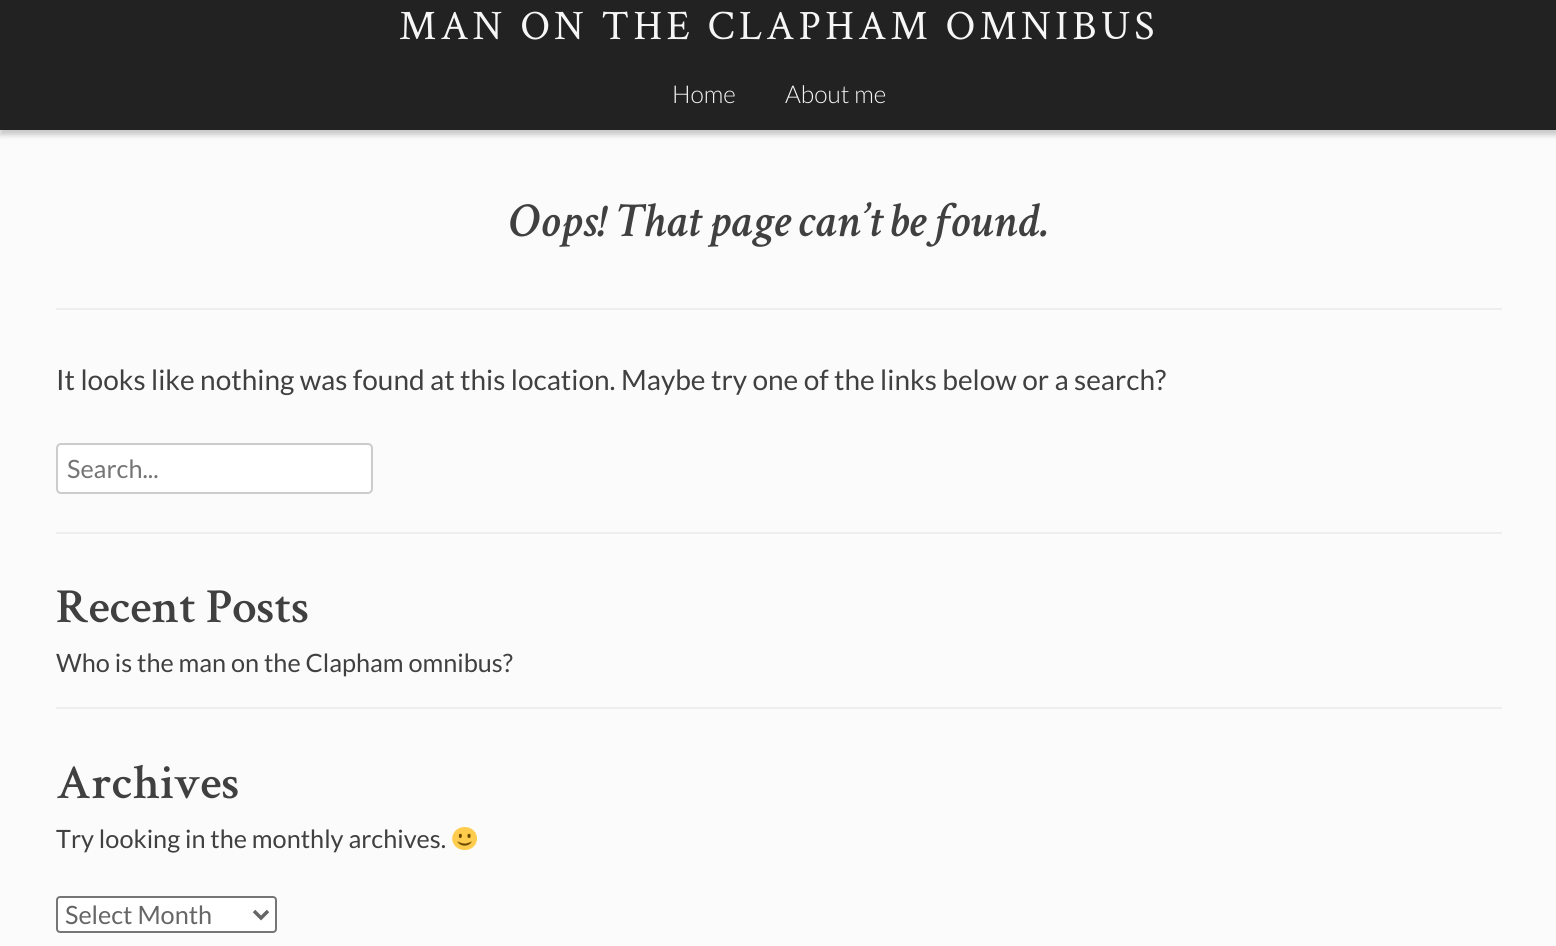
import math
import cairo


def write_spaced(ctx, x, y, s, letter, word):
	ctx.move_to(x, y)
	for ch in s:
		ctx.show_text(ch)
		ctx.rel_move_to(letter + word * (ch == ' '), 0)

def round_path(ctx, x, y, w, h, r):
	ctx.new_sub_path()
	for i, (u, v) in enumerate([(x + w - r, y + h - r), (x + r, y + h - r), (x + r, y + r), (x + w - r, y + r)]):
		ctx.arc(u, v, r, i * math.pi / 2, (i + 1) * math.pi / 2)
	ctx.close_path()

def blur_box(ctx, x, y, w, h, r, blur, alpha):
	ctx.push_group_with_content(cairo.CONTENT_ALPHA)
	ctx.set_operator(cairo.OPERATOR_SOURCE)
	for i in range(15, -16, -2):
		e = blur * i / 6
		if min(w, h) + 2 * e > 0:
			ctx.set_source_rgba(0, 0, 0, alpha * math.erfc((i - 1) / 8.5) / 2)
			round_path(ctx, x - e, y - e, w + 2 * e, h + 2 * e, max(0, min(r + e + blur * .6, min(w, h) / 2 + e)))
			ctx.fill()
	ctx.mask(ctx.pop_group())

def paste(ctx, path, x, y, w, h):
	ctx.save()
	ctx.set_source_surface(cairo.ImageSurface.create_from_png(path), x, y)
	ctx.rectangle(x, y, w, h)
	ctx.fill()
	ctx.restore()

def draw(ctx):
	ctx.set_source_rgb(0.984, 0.984, 0.984)
	ctx.paint()
	ctx.set_source_rgb(0, 0, 0)
	blur_box(ctx, 0, -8, 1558, 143, 0, 2.5, 0.2)
	ctx.set_source_rgb(0.133, 0.133, 0.133)
	ctx.rectangle(0, 0, 1556, 130)
	ctx.fill()
	ctx.select_font_face('Crimson Text')
	ctx.set_font_size(42)
	ctx.set_source_rgb(0.961, 0.961, 0.961)
	write_spaced(ctx, 399, 39, 'MAN ON THE CLAPHAM OMNIBUS', 4.2, 0)
	ctx.select_font_face('Lato Light')
	ctx.set_font_size(24.5)
	ctx.move_to(672, 103)
	ctx.show_text('Home')
	ctx.move_to(785, 103)
	ctx.show_text('About me')
	ctx.set_source_rgb(0.933, 0.933, 0.933)
	ctx.rectangle(56, 308, 1446, 2)
	ctx.fill()
	ctx.select_font_face('Crimson Text SemiBold', cairo.FONT_SLANT_ITALIC)
	ctx.set_font_size(49)
	ctx.set_source_rgb(0.251, 0.251, 0.251)
	ctx.move_to(509, 236)
	ctx.show_text('Oops! That page can’t be found.')
	ctx.select_font_face('Lato')
	ctx.set_font_size(28)
	ctx.move_to(56, 390)
	ctx.show_text('It looks like nothing was found at this location. Maybe try one of the links below or a search?')
	ctx.set_source_rgb(0.933, 0.933, 0.933)
	ctx.rectangle(56, 532, 1446, 2)
	ctx.fill()
	ctx.set_source_rgb(1, 1, 1)
	round_path(ctx, 57, 444, 315, 49, 4)
	ctx.fill_preserve()
	ctx.set_source_rgb(0.8, 0.8, 0.8)
	ctx.stroke()
	ctx.set_font_size(25.25)
	ctx.set_source_rgb(0.459, 0.459, 0.459)
	ctx.move_to(67, 478)
	ctx.show_text('Search...')
	ctx.set_source_rgb(0.933, 0.933, 0.933)
	ctx.rectangle(56, 707, 1446, 2)
	ctx.fill()
	ctx.select_font_face('Crimson Text SemiBold')
	ctx.set_font_size(49)
	ctx.set_source_rgb(0.251, 0.251, 0.251)
	ctx.move_to(56, 622)
	ctx.show_text('Recent Posts')
	ctx.select_font_face('Lato')
	ctx.set_font_size(25.25)
	ctx.move_to(56, 672)
	ctx.show_text('Who is the man on the Clapham omnibus?')
	ctx.select_font_face('Crimson Text SemiBold')
	ctx.set_font_size(49)
	ctx.move_to(56, 798)
	ctx.show_text('Archives')
	ctx.select_font_face('Lato')
	ctx.set_font_size(25.25)
	ctx.move_to(56, 848)
	ctx.show_text('Try looking in the monthly archives.')
	paste(ctx, 'media/1.png', 452, 827, 25, 23)
	ctx.set_source_rgb(1, 1, 1)
	round_path(ctx, 57, 897, 219, 35, 3)
	ctx.fill_preserve()
	ctx.set_source_rgb(0.463, 0.463, 0.463)
	ctx.stroke()
	ctx.new_path()
	ctx.move_to(254, 911)
	ctx.line_to(261, 918)
	ctx.line_to(268, 911)
	ctx.set_source_rgb(0.4, 0.4, 0.4)
	ctx.set_line_width(3.5)
	ctx.stroke()
	ctx.move_to(65, 924)
	ctx.show_text('Select Month')


surface = cairo.ImageSurface(cairo.FORMAT_RGB24, 1556, 946)
ctx = cairo.Context(surface)
options = cairo.FontOptions()
options.set_hint_metrics(cairo.HINT_METRICS_OFF)
options.set_hint_style(cairo.HINT_STYLE_NONE)
ctx.set_font_options(options)
ctx.set_miter_limit(4)
draw(ctx)
surface.write_to_png('image.png')
